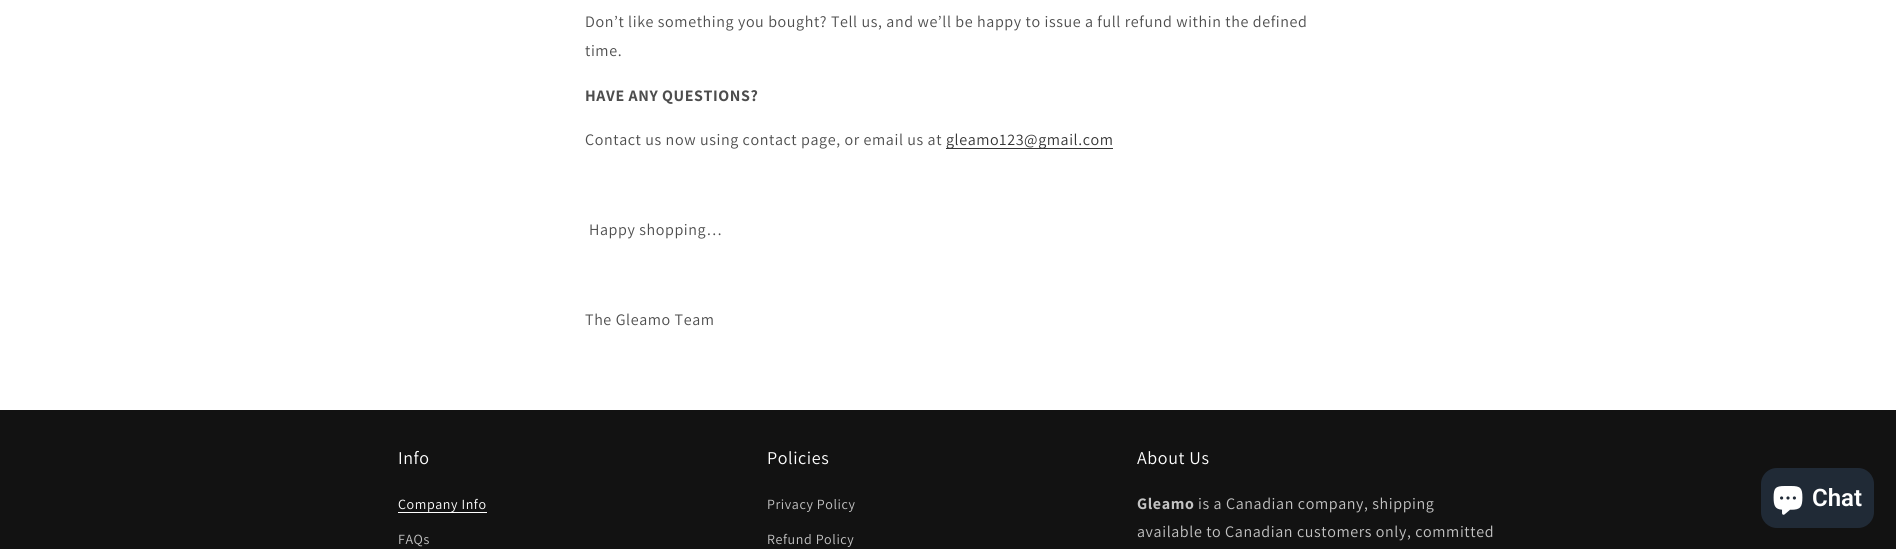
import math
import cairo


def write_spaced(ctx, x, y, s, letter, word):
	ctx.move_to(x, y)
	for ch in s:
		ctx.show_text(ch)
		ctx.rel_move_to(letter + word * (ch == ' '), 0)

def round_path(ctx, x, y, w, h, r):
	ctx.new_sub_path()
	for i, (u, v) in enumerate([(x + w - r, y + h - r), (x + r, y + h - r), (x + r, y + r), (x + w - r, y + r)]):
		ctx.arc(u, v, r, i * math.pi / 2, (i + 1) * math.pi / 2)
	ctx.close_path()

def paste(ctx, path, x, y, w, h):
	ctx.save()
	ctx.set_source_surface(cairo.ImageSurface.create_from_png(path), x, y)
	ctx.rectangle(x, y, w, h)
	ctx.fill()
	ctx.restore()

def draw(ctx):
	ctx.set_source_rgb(1, 1, 1)
	ctx.paint()
	ctx.select_font_face('Assistant')
	ctx.set_font_size(16)
	ctx.set_source_rgb(0.302, 0.302, 0.302)
	write_spaced(ctx, 585, 27, 'Don’t like something you bought? Tell us, and we’ll be happy to issue a full refund within the defined', 0.6, 0)
	write_spaced(ctx, 585, 56, 'time.', 0.6, 0)
	ctx.select_font_face('Assistant', cairo.FONT_SLANT_NORMAL, cairo.FONT_WEIGHT_BOLD)
	write_spaced(ctx, 585, 101, 'HAVE ANY QUESTIONS?', 0.6, 0)
	ctx.select_font_face('Assistant')
	write_spaced(ctx, 585, 145, 'Contact us now using contact page, or email us at', 0.6, 0)
	ctx.set_source_rgb(0.212, 0.212, 0.212)
	ctx.rectangle(946, 148, 167, 1)
	ctx.fill()
	ctx.set_source_rgb(0.208, 0.208, 0.208)
	write_spaced(ctx, 946, 145, 'gleamo123@gmail.com', 0.6, 0)
	ctx.set_source_rgb(0.302, 0.302, 0.302)
	write_spaced(ctx, 589, 235, 'Happy shopping…', 0.6, 0)
	write_spaced(ctx, 585, 325, 'The Gleamo Team', 0.6, 0)
	ctx.set_source_rgb(0.071, 0.071, 0.071)
	ctx.rectangle(0, 410, 1896, 139)
	ctx.fill()
	ctx.set_font_size(18)
	ctx.set_source_rgb(1, 1, 1)
	write_spaced(ctx, 398, 464, 'Info', 0.6, 0)
	ctx.set_font_size(14)
	write_spaced(ctx, 398, 509, 'Company Info', 0.6, 0)
	ctx.rectangle(398, 512, 89, 1)
	ctx.fill()
	ctx.set_source_rgb(0.769, 0.769, 0.769)
	write_spaced(ctx, 398, 544, 'FAQs', 0.6, 0)
	ctx.set_font_size(18)
	ctx.set_source_rgb(1, 1, 1)
	write_spaced(ctx, 767, 464, 'Policies', 0.6, 0)
	ctx.set_font_size(14)
	ctx.set_source_rgb(0.769, 0.769, 0.769)
	write_spaced(ctx, 767, 509, 'Privacy Policy', 0.6, 0)
	write_spaced(ctx, 767, 544, 'Refund Policy', 0.6, 0)
	ctx.set_font_size(18)
	ctx.set_source_rgb(1, 1, 1)
	write_spaced(ctx, 1137, 464, 'About Us', 0.6, 0)
	ctx.select_font_face('Assistant', cairo.FONT_SLANT_NORMAL, cairo.FONT_WEIGHT_BOLD)
	ctx.set_font_size(16)
	ctx.set_source_rgb(0.769, 0.769, 0.769)
	write_spaced(ctx, 1137, 509, 'Gleamo', 0.6, 0)
	ctx.select_font_face('Assistant')
	write_spaced(ctx, 1198, 509, 'is a Canadian company, shipping', 0.6, 0)
	write_spaced(ctx, 1137, 537, 'available to Canadian customers only, committed', 0.6, 0)
	ctx.set_source_rgb(0.125, 0.165, 0.212)
	round_path(ctx, 1761, 468, 113, 60, 16)
	ctx.fill()
	paste(ctx, 'media/1.png', 1773, 486, 30, 29)
	ctx.select_font_face('Roboto SemiBold')
	ctx.set_font_size(24)
	ctx.set_source_rgb(1, 1, 1)
	ctx.move_to(1812, 506)
	ctx.show_text('Chat')


surface = cairo.ImageSurface(cairo.FORMAT_RGB24, 1896, 549)
ctx = cairo.Context(surface)
options = cairo.FontOptions()
options.set_hint_metrics(cairo.HINT_METRICS_OFF)
options.set_hint_style(cairo.HINT_STYLE_NONE)
ctx.set_font_options(options)
ctx.set_miter_limit(4)
draw(ctx)
surface.write_to_png('image.png')
